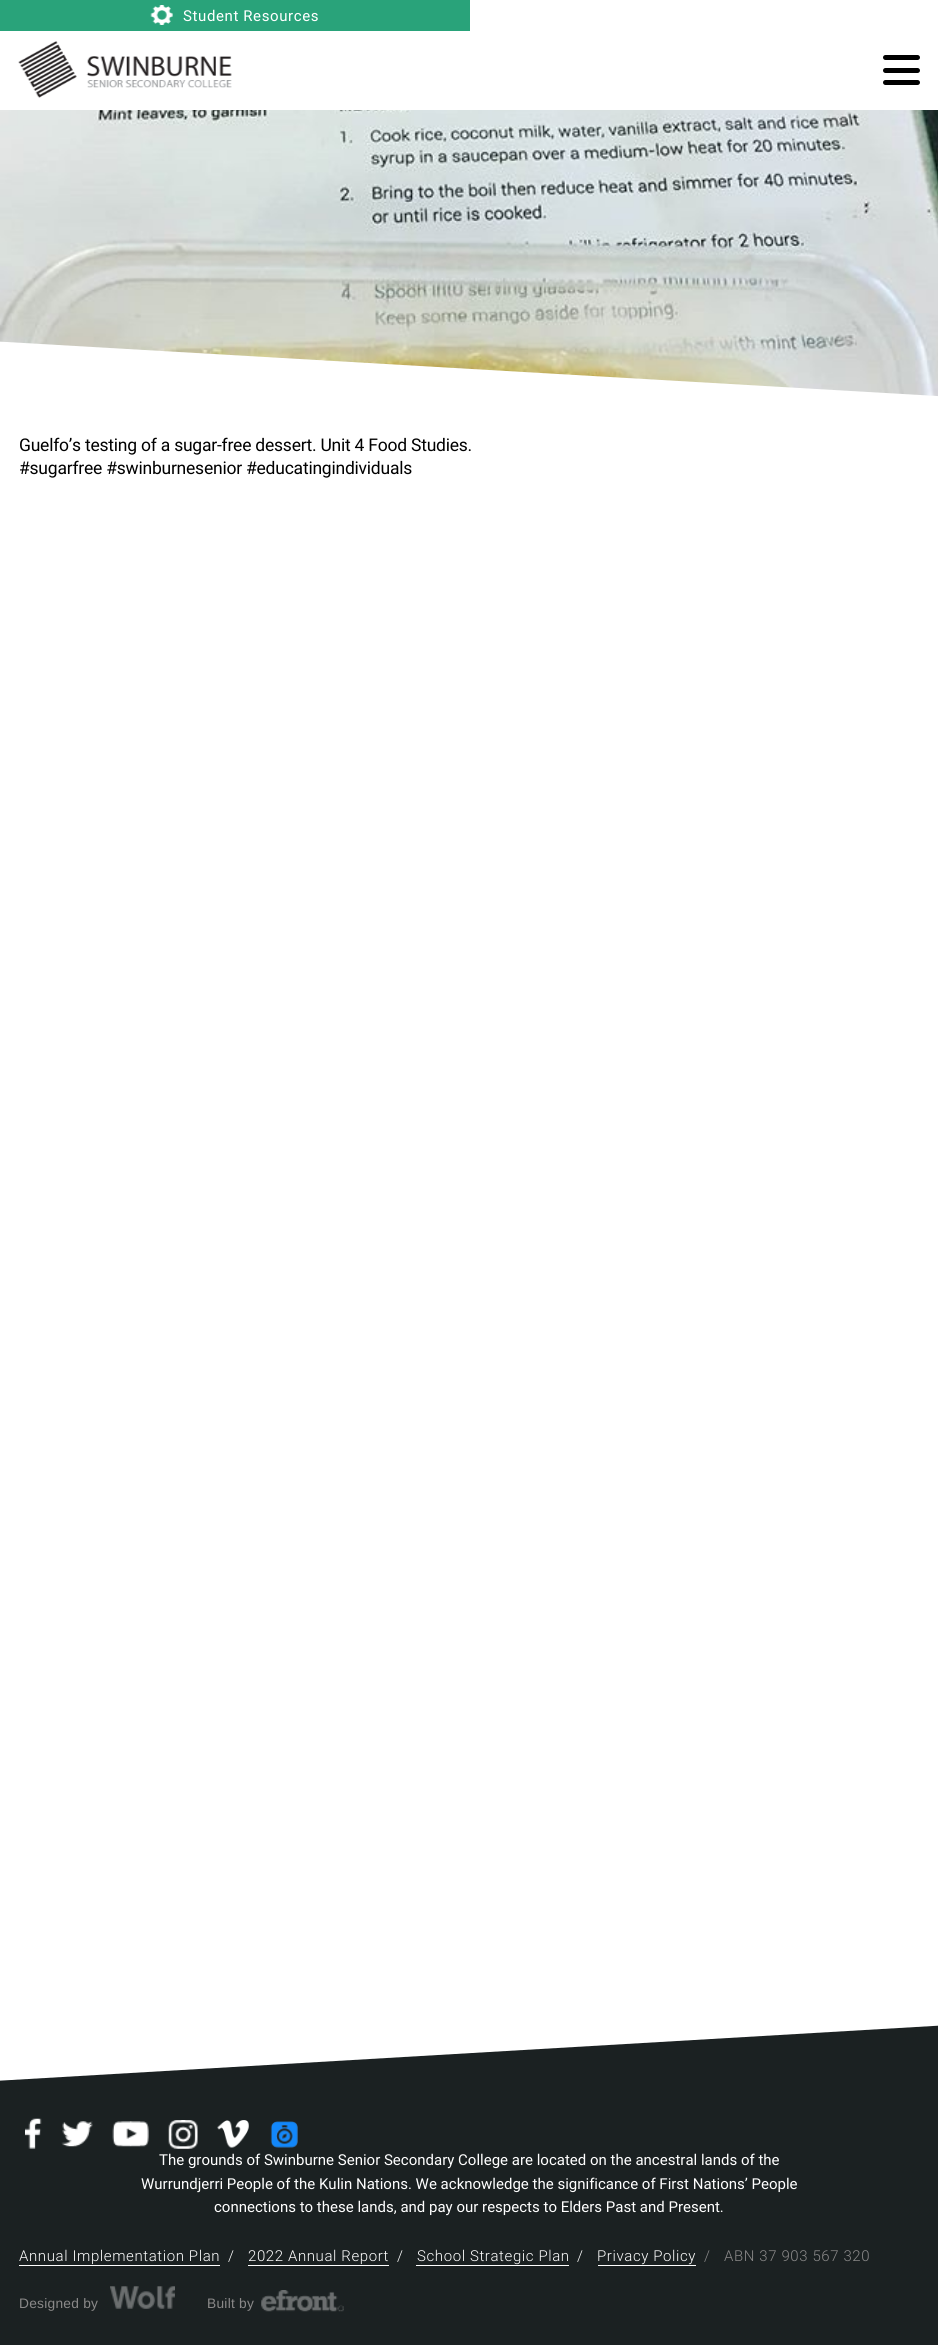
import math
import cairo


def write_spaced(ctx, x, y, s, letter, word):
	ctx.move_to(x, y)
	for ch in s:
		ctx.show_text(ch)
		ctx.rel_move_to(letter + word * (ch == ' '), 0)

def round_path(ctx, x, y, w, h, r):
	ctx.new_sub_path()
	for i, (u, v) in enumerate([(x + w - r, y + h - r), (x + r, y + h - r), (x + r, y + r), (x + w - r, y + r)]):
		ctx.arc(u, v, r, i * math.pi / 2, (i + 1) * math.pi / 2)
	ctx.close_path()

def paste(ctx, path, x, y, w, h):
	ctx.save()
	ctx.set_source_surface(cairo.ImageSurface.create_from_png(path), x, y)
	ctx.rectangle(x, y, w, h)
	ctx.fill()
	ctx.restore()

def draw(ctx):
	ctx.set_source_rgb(1, 1, 1)
	ctx.paint()
	ctx.set_source_rgb(0.161, 0.639, 0.478)
	ctx.rectangle(0, 0, 470, 31)
	ctx.fill()
	paste(ctx, 'media/1.png', 150, 5, 23, 20)
	ctx.select_font_face('Heebo')
	ctx.set_font_size(15)
	ctx.set_source_rgb(1, 1, 1)
	write_spaced(ctx, 183, 21, 'Student Resources', 0.6, 0)
	paste(ctx, 'media/2.png', 18, 41, 214, 57)
	ctx.set_source_rgb(0, 0, 0)
	round_path(ctx, 883, 55, 37, 5, 2.5)
	ctx.fill()
	round_path(ctx, 883, 68, 37, 5, 2.5)
	ctx.fill()
	round_path(ctx, 883, 80, 37, 5, 2.5)
	ctx.fill()
	paste(ctx, 'media/3.png', 0, 110, 938, 287)
	ctx.set_source_rgb(1, 1, 1)
	ctx.new_path()
	ctx.move_to(-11, 341)
	ctx.line_to(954, 397)
	ctx.line_to(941, 630)
	ctx.line_to(-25, 574)
	ctx.close_path()
	ctx.fill()
	ctx.set_font_size(17.5)
	ctx.set_source_rgb(0, 0, 0)
	write_spaced(ctx, 19, 451, 'Guelfo’s testing of a sugar-free dessert. Unit 4 Food Studies.', -0.23, 0)
	write_spaced(ctx, 19, 474, '#sugarfree #swinburnesenior #educatingindividuals', -0.23, 0)
	ctx.set_source_rgb(0.106, 0.129, 0.133)
	ctx.rectangle(0, 2181, 938, 164)
	ctx.fill()
	ctx.new_path()
	ctx.move_to(-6, 2081)
	ctx.line_to(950, 2025)
	ctx.line_to(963, 2259)
	ctx.line_to(8, 2314)
	ctx.close_path()
	ctx.fill()
	paste(ctx, 'media/4.png', 25, 2118, 17, 31)
	paste(ctx, 'media/5.png', 61, 2121, 32, 26)
	paste(ctx, 'media/6.png', 112, 2121, 37, 26)
	paste(ctx, 'media/7.png', 168, 2120, 30, 29)
	paste(ctx, 'media/8.png', 217, 2120, 32, 28)
	paste(ctx, 'media/9.png', 270, 2121, 28, 27)
	ctx.set_font_size(15)
	ctx.set_source_rgb(1, 1, 1)
	for x, y, s in [
		(159, 2165, 'The grounds of Swinburne Senior Secondary College are located on the ancestral lands of the'),
		(141, 2189, 'Wurrundjerri People of the Kulin Nations. We acknowledge the significance of First Nations’ People'),
		(214, 2212, 'connections to these lands, and pay our respects to Elders Past and Present.'),
	]:
		ctx.move_to(x, y)
		ctx.show_text(s)
	ctx.select_font_face('Heebo Light')
	write_spaced(ctx, 19, 2261, 'Annual Implementation Plan', 0.6, 0)
	ctx.rectangle(19, 2265, 201, 1)
	ctx.fill()
	write_spaced(ctx, 228, 2261, '/', 0.6, 0)
	write_spaced(ctx, 248, 2261, '2022 Annual Report', 0.6, 0)
	ctx.rectangle(248, 2265, 141, 1)
	ctx.fill()
	write_spaced(ctx, 397, 2261, '/', 0.6, 0)
	write_spaced(ctx, 417, 2261, 'School Strategic Plan', 0.6, 0)
	ctx.rectangle(416, 2265, 153, 1)
	ctx.fill()
	write_spaced(ctx, 577, 2261, '/', 0.6, 0)
	write_spaced(ctx, 597, 2261, 'Privacy Policy', 0.6, 0)
	ctx.rectangle(598, 2265, 98, 1)
	ctx.fill()
	ctx.set_source_rgb(0.541, 0.537, 0.537)
	write_spaced(ctx, 704, 2261, '/', 0.6, 0)
	write_spaced(ctx, 724, 2261, 'ABN 37 903 567 320', 0.6, 0)
	ctx.select_font_face('Liberation Sans')
	ctx.set_font_size(13.75)
	write_spaced(ctx, 19, 2308, 'Designed by', 0.25, 0)
	paste(ctx, 'media/10.png', 110, 2286, 65, 23)
	write_spaced(ctx, 207, 2308, 'Built by', 0.25, 0)
	paste(ctx, 'media/11.png', 261, 2290, 83, 22)


surface = cairo.ImageSurface(cairo.FORMAT_RGB24, 938, 2345)
ctx = cairo.Context(surface)
options = cairo.FontOptions()
options.set_hint_metrics(cairo.HINT_METRICS_OFF)
options.set_hint_style(cairo.HINT_STYLE_NONE)
ctx.set_font_options(options)
ctx.set_miter_limit(4)
draw(ctx)
surface.write_to_png('image.png')
